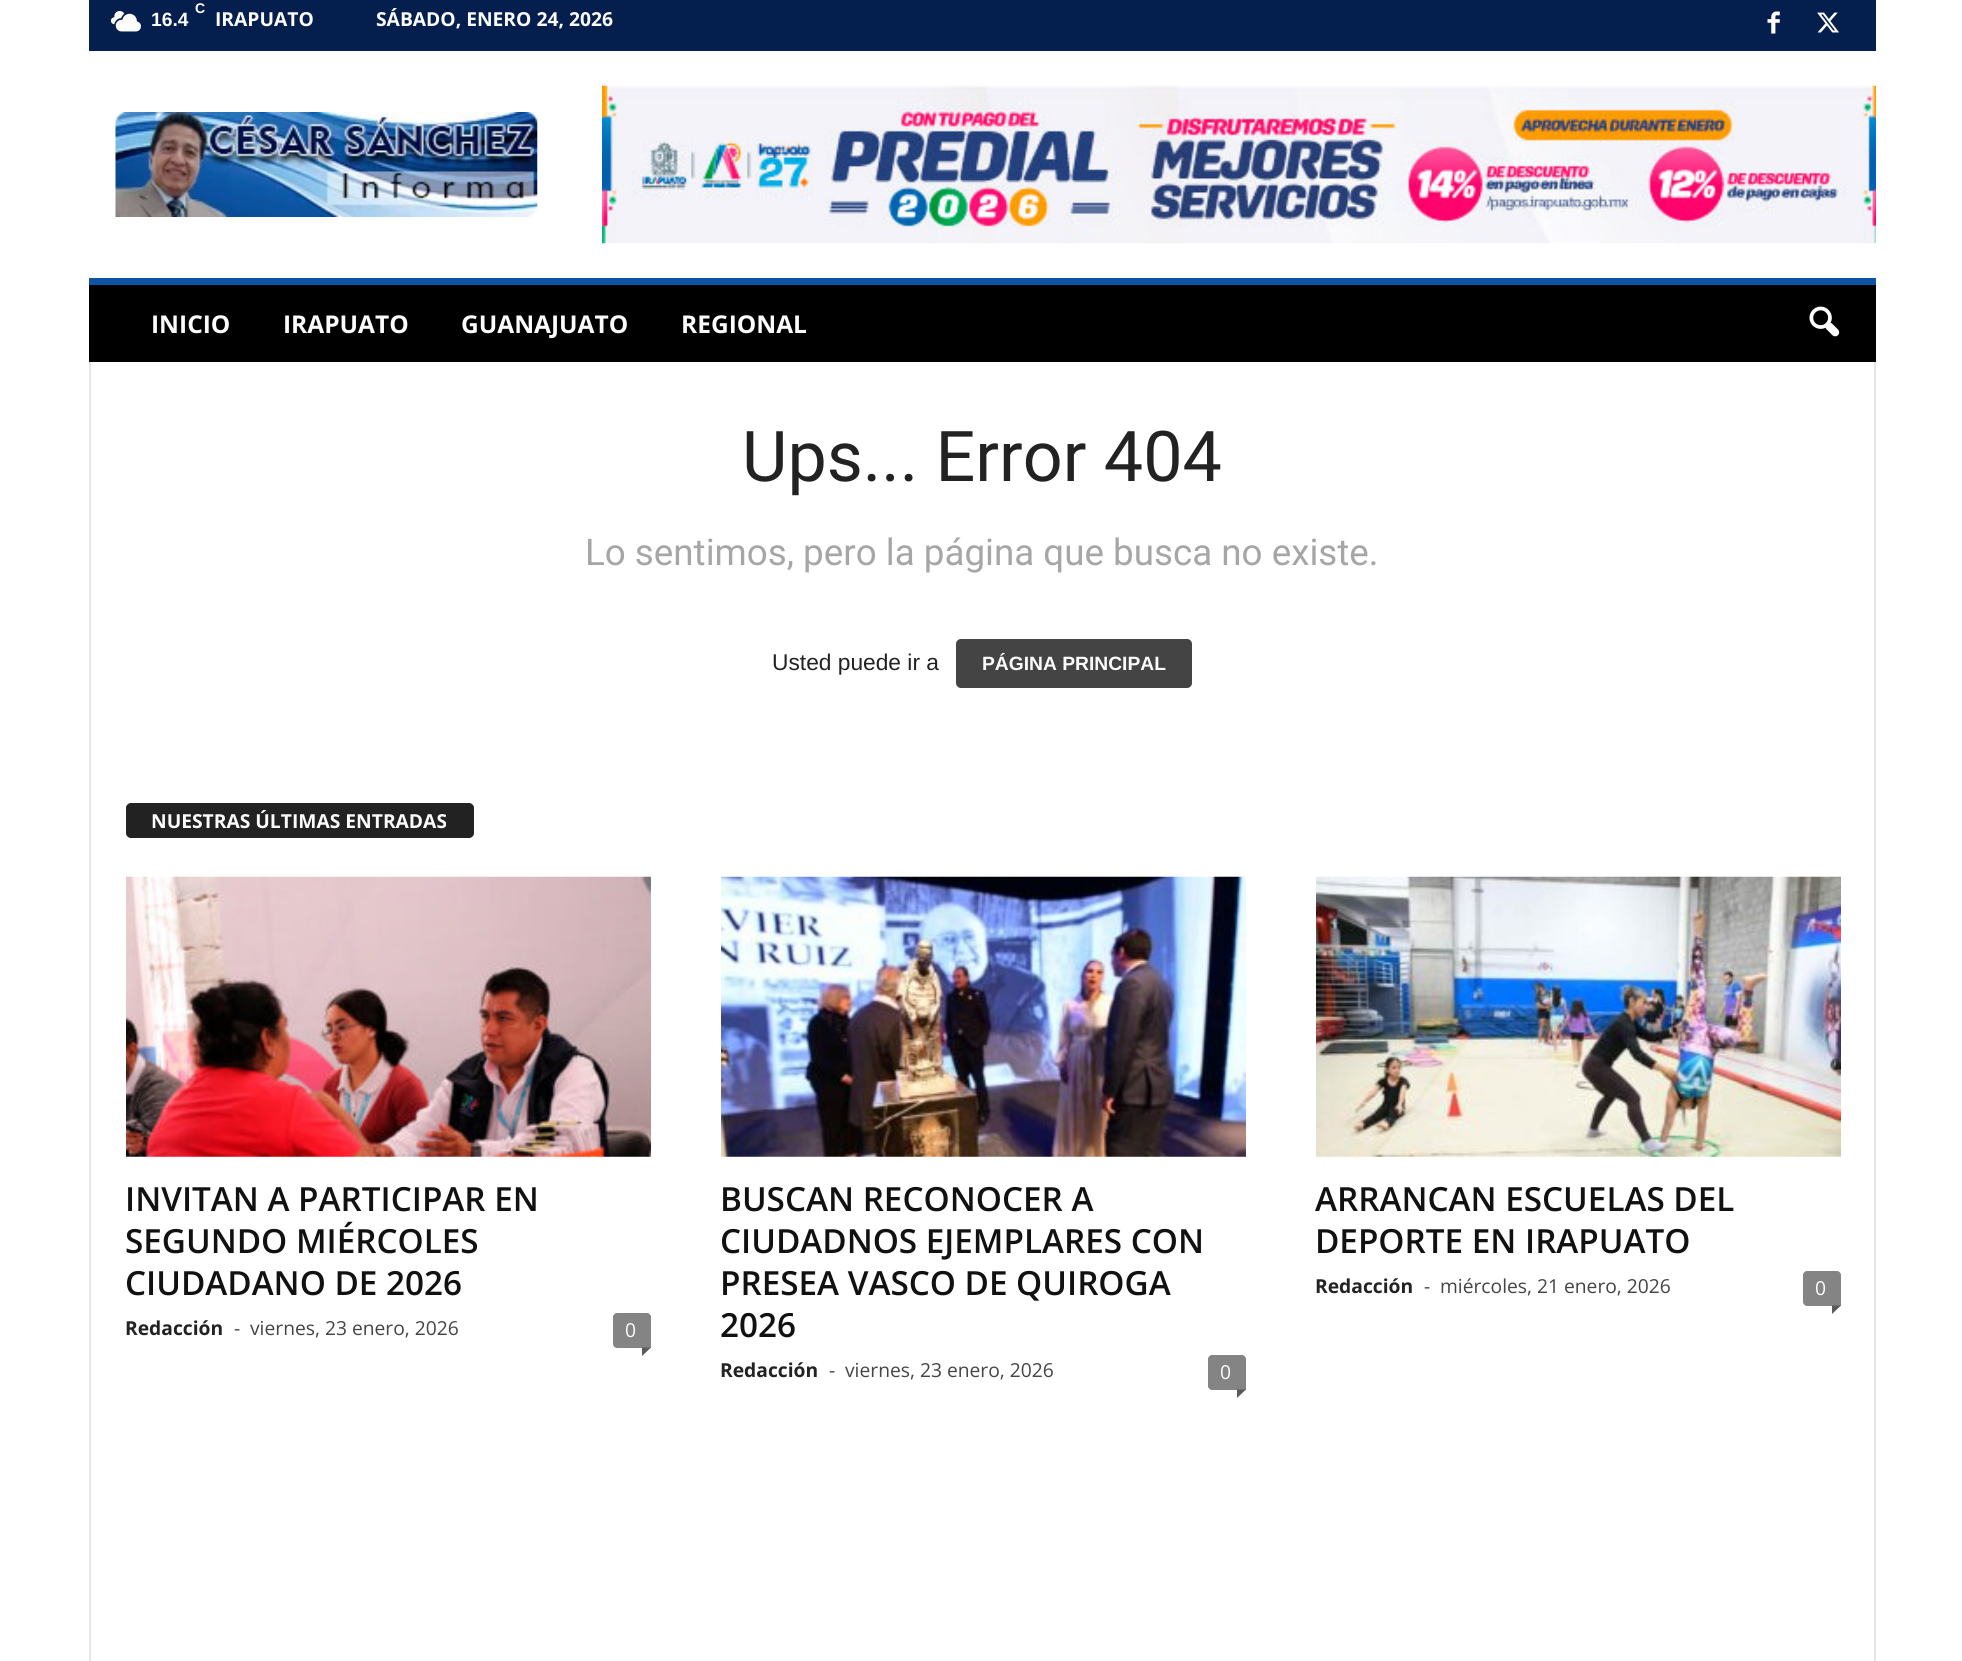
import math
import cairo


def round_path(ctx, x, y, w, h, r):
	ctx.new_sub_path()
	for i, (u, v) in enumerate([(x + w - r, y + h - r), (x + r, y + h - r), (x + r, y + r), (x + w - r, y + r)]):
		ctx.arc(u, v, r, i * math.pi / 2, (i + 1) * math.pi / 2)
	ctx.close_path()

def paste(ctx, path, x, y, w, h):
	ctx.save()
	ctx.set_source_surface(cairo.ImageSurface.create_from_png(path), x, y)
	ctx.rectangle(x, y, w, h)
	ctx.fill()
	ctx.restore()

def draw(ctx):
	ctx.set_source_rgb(1, 1, 1)
	ctx.paint()
	ctx.set_source_rgb(0.016, 0.118, 0.302)
	ctx.rectangle(89, 0, 1787, 51)
	ctx.fill()
	paste(ctx, 'media/1.png', 110, 11, 31, 21)
	ctx.select_font_face('Liberation Sans', cairo.FONT_SLANT_NORMAL, cairo.FONT_WEIGHT_BOLD)
	ctx.set_font_size(14)
	ctx.set_source_rgb(0.988, 0.988, 0.988)
	ctx.move_to(195, 13)
	ctx.show_text('C')
	ctx.set_font_size(19.25)
	ctx.move_to(151, 26)
	ctx.show_text('16.4')
	ctx.select_font_face('Open Sans', cairo.FONT_SLANT_NORMAL, cairo.FONT_WEIGHT_BOLD)
	ctx.move_to(215, 26)
	ctx.show_text('IRAPUATO')
	ctx.move_to(376, 26)
	ctx.show_text('SÁBADO, ENERO 24, 2026')
	paste(ctx, 'media/2.png', 1767, 11, 13, 23)
	paste(ctx, 'media/3.png', 1817, 12, 22, 21)
	paste(ctx, 'media/4.png', 115, 112, 423, 105)
	paste(ctx, 'media/5.png', 602, 85, 1274, 159)
	ctx.set_source_rgb(0, 0, 0)
	ctx.rectangle(89, 285, 1787, 77)
	ctx.fill()
	ctx.set_source_rgb(0.051, 0.333, 0.643)
	ctx.rectangle(89, 278, 1787, 7)
	ctx.fill()
	ctx.set_font_size(24.5)
	ctx.set_source_rgb(0.988, 0.988, 0.988)
	for x, y, s in [
		(151, 333, 'INICIO'),
		(283, 333, 'IRAPUATO'),
		(461, 333, 'GUANAJUATO'),
		(681, 333, 'REGIONAL'),
	]:
		ctx.move_to(x, y)
		ctx.show_text(s)
	paste(ctx, 'media/6.png', 1809, 306, 31, 31)
	ctx.set_source_rgb(0.902, 0.902, 0.902)
	ctx.rectangle(89, 362, 2, 1299)
	ctx.fill()
	ctx.select_font_face('Roboto')
	ctx.set_font_size(70)
	ctx.set_source_rgb(0.133, 0.133, 0.133)
	ctx.move_to(742, 481)
	ctx.show_text('Ups... Error 404')
	ctx.set_font_size(36.75)
	ctx.set_source_rgb(0.651, 0.651, 0.651)
	ctx.move_to(585, 565)
	ctx.show_text('Lo sentimos, pero la página que busca no existe.')
	ctx.select_font_face('Liberation Sans')
	ctx.set_font_size(22.75)
	ctx.set_source_rgb(0.133, 0.133, 0.133)
	ctx.move_to(772, 670)
	ctx.show_text('Usted puede ir a')
	ctx.set_source_rgb(0.267, 0.267, 0.267)
	round_path(ctx, 956, 639, 236, 49, 5)
	ctx.fill()
	ctx.select_font_face('Liberation Sans', cairo.FONT_SLANT_NORMAL, cairo.FONT_WEIGHT_BOLD)
	ctx.set_font_size(19.25)
	ctx.set_source_rgb(0.988, 0.988, 0.988)
	ctx.move_to(982, 670)
	ctx.show_text('PÁGINA PRINCIPAL')
	ctx.set_source_rgb(0.133, 0.133, 0.133)
	round_path(ctx, 126, 803, 348, 35, 5)
	ctx.fill()
	ctx.select_font_face('Open Sans', cairo.FONT_SLANT_NORMAL, cairo.FONT_WEIGHT_BOLD)
	ctx.set_source_rgb(0.988, 0.988, 0.988)
	ctx.move_to(151, 828)
	ctx.show_text('NUESTRAS ÚLTIMAS ENTRADAS')
	paste(ctx, 'media/7.png', 126, 876, 525, 281)
	ctx.select_font_face('Open Sans SemiBold')
	ctx.set_font_size(33.25)
	ctx.set_source_rgb(0.067, 0.067, 0.067)
	for x, y, s in [
		(125, 1211, 'INVITAN A PARTICIPAR EN'),
		(125, 1253, 'SEGUNDO MIÉRCOLES'),
		(125, 1295, 'CIUDADANO DE 2026'),
	]:
		ctx.move_to(x, y)
		ctx.show_text(s)
	ctx.select_font_face('Open Sans', cairo.FONT_SLANT_NORMAL, cairo.FONT_WEIGHT_BOLD)
	ctx.set_font_size(19.25)
	ctx.set_source_rgb(0.133, 0.133, 0.133)
	ctx.move_to(125, 1335)
	ctx.show_text('Redacción')
	ctx.select_font_face('Open Sans')
	ctx.set_source_rgb(0.267, 0.267, 0.267)
	ctx.move_to(234, 1335)
	ctx.show_text('-')
	ctx.move_to(250, 1335)
	ctx.show_text('viernes, 23 enero, 2026')
	ctx.set_source_rgb(0.518, 0.518, 0.518)
	ctx.new_path()
	ctx.move_to(617, 1313)
	ctx.line_to(647, 1313)
	ctx.curve_to(649, 1313, 651, 1315, 651, 1317)
	ctx.line_to(651, 1348)
	ctx.line_to(617, 1348)
	ctx.curve_to(615, 1348, 613, 1346, 613, 1344)
	ctx.line_to(613, 1317)
	ctx.curve_to(613, 1315, 615, 1313, 617, 1313)
	ctx.close_path()
	ctx.fill()
	ctx.set_source_rgb(0.988, 0.988, 0.988)
	ctx.move_to(625, 1337)
	ctx.show_text('0')
	ctx.set_source_rgb(0.357, 0.357, 0.357)
	ctx.new_path()
	ctx.move_to(642, 1347.5)
	ctx.line_to(651, 1347.5)
	ctx.line_to(642, 1356)
	ctx.close_path()
	ctx.fill()
	paste(ctx, 'media/8.png', 721, 876, 525, 281)
	ctx.select_font_face('Open Sans SemiBold')
	ctx.set_font_size(33.25)
	ctx.set_source_rgb(0.067, 0.067, 0.067)
	for x, y, s in [
		(720, 1211, 'BUSCAN RECONOCER A'),
		(720, 1253, 'CIUDADNOS EJEMPLARES CON'),
		(720, 1295, 'PRESEA VASCO DE QUIROGA'),
		(720, 1337, '2026'),
	]:
		ctx.move_to(x, y)
		ctx.show_text(s)
	ctx.select_font_face('Open Sans', cairo.FONT_SLANT_NORMAL, cairo.FONT_WEIGHT_BOLD)
	ctx.set_font_size(19.25)
	ctx.set_source_rgb(0.133, 0.133, 0.133)
	ctx.move_to(720, 1377)
	ctx.show_text('Redacción')
	ctx.select_font_face('Open Sans')
	ctx.set_source_rgb(0.267, 0.267, 0.267)
	ctx.move_to(829, 1377)
	ctx.show_text('-')
	ctx.move_to(845, 1377)
	ctx.show_text('viernes, 23 enero, 2026')
	ctx.set_source_rgb(0.518, 0.518, 0.518)
	ctx.new_path()
	ctx.move_to(1212, 1355)
	ctx.line_to(1242, 1355)
	ctx.curve_to(1244, 1355, 1246, 1357, 1246, 1359)
	ctx.line_to(1246, 1390)
	ctx.line_to(1212, 1390)
	ctx.curve_to(1210, 1390, 1208, 1388, 1208, 1386)
	ctx.line_to(1208, 1359)
	ctx.curve_to(1208, 1357, 1210, 1355, 1212, 1355)
	ctx.close_path()
	ctx.fill()
	ctx.set_source_rgb(0.988, 0.988, 0.988)
	ctx.move_to(1220, 1379)
	ctx.show_text('0')
	ctx.set_source_rgb(0.357, 0.357, 0.357)
	ctx.new_path()
	ctx.move_to(1237, 1389.5)
	ctx.line_to(1246, 1389.5)
	ctx.line_to(1237, 1398)
	ctx.close_path()
	ctx.fill()
	paste(ctx, 'media/9.png', 1316, 876, 525, 281)
	ctx.select_font_face('Open Sans SemiBold')
	ctx.set_font_size(33.25)
	ctx.set_source_rgb(0.067, 0.067, 0.067)
	ctx.move_to(1315, 1211)
	ctx.show_text('ARRANCAN ESCUELAS DEL')
	ctx.move_to(1315, 1253)
	ctx.show_text('DEPORTE EN IRAPUATO')
	ctx.select_font_face('Open Sans', cairo.FONT_SLANT_NORMAL, cairo.FONT_WEIGHT_BOLD)
	ctx.set_font_size(19.25)
	ctx.set_source_rgb(0.133, 0.133, 0.133)
	ctx.move_to(1315, 1293)
	ctx.show_text('Redacción')
	ctx.select_font_face('Open Sans')
	ctx.set_source_rgb(0.267, 0.267, 0.267)
	ctx.move_to(1424, 1293)
	ctx.show_text('-')
	ctx.move_to(1440, 1293)
	ctx.show_text('miércoles, 21 enero, 2026')
	ctx.set_source_rgb(0.518, 0.518, 0.518)
	ctx.new_path()
	ctx.move_to(1807, 1271)
	ctx.line_to(1837, 1271)
	ctx.curve_to(1839, 1271, 1841, 1273, 1841, 1275)
	ctx.line_to(1841, 1306)
	ctx.line_to(1807, 1306)
	ctx.curve_to(1805, 1306, 1803, 1304, 1803, 1302)
	ctx.line_to(1803, 1275)
	ctx.curve_to(1803, 1273, 1805, 1271, 1807, 1271)
	ctx.close_path()
	ctx.fill()
	ctx.set_source_rgb(0.988, 0.988, 0.988)
	ctx.move_to(1815, 1295)
	ctx.show_text('0')
	ctx.set_source_rgb(0.357, 0.357, 0.357)
	ctx.new_path()
	ctx.move_to(1832, 1305.5)
	ctx.line_to(1841, 1305.5)
	ctx.line_to(1832, 1314)
	ctx.close_path()
	ctx.fill()
	ctx.set_source_rgb(0.902, 0.902, 0.902)
	ctx.rectangle(1874, 362, 2, 1299)
	ctx.fill()


surface = cairo.ImageSurface(cairo.FORMAT_RGB24, 1962, 1661)
ctx = cairo.Context(surface)
options = cairo.FontOptions()
options.set_hint_metrics(cairo.HINT_METRICS_OFF)
options.set_hint_style(cairo.HINT_STYLE_NONE)
ctx.set_font_options(options)
ctx.set_miter_limit(4)
draw(ctx)
surface.write_to_png('image.png')
